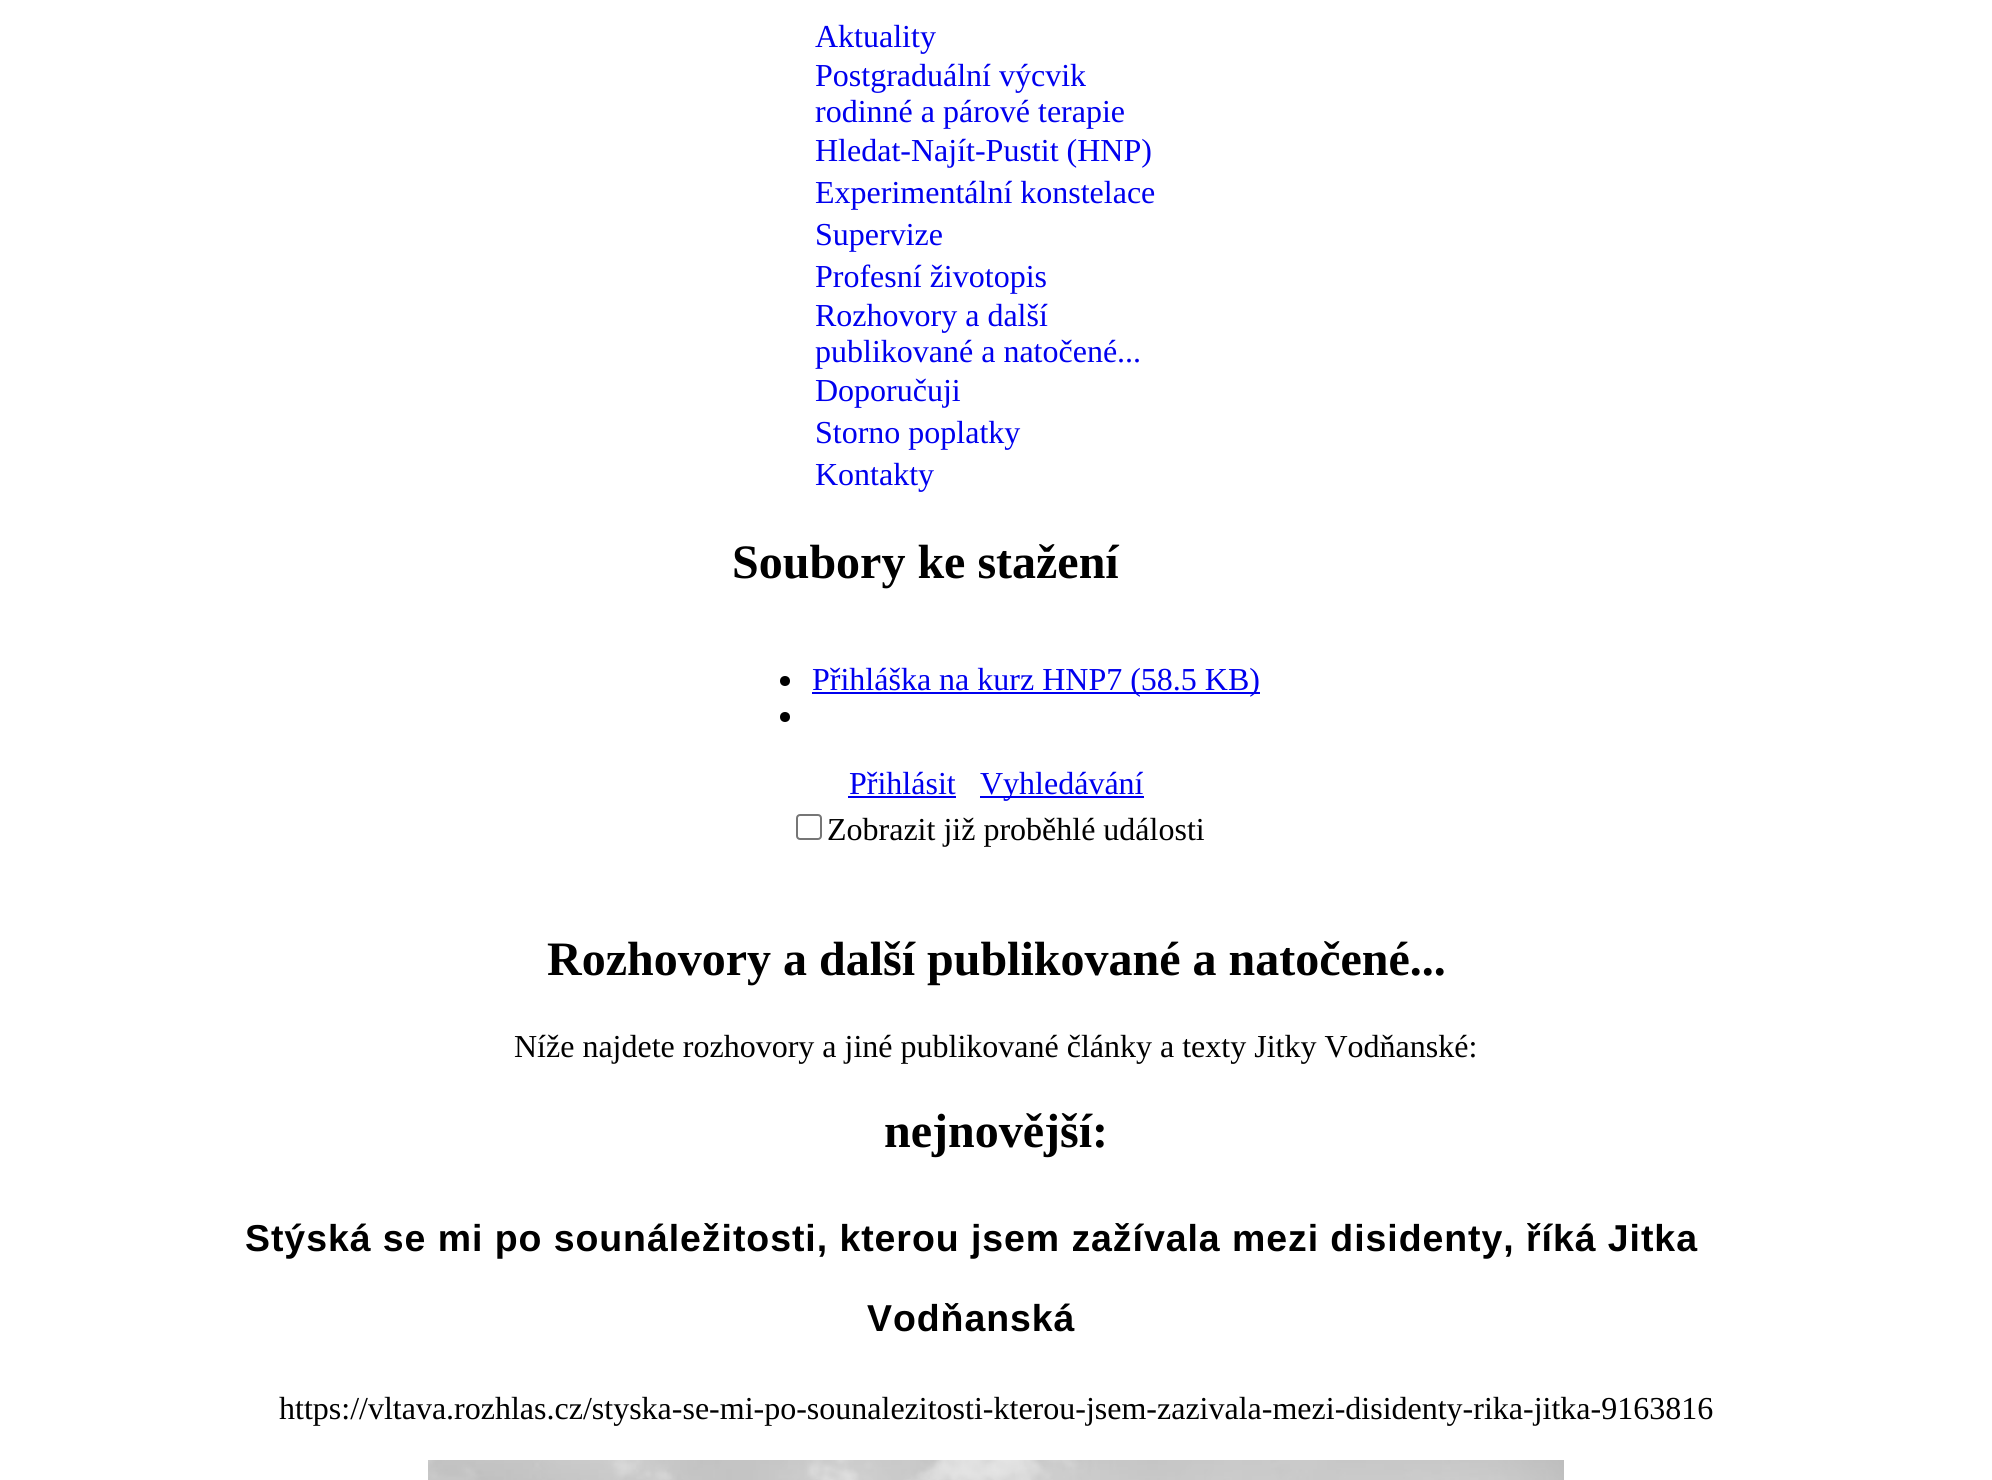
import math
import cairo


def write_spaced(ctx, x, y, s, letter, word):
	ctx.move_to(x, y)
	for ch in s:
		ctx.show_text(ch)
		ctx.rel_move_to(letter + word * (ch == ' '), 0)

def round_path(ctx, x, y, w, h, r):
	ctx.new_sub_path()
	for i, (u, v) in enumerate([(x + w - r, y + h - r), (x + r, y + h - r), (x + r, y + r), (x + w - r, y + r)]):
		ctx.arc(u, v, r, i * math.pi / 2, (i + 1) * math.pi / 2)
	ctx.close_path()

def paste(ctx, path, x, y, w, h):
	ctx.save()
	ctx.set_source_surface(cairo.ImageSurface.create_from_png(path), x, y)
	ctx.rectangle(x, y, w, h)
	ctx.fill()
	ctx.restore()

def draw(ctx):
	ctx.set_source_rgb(1, 1, 1)
	ctx.paint()
	ctx.select_font_face('Liberation Serif')
	ctx.set_font_size(32)
	ctx.set_source_rgb(0, 0, 0.933)
	for x, y, s in [
		(815, 47, 'Aktuality'),
		(815, 86, 'Postgraduální výcvik'),
		(815, 122, 'rodinné a párové terapie'),
		(815, 161, 'Hledat-Najít-Pustit (HNP)'),
		(815, 203, 'Experimentální konstelace'),
		(815, 245, 'Supervize'),
		(815, 287, 'Profesní životopis'),
		(815, 326, 'Rozhovory a další'),
		(815, 362, 'publikované a natočené...'),
		(815, 401, 'Doporučuji'),
		(815, 443, 'Storno poplatky'),
		(815, 485, 'Kontakty'),
	]:
		ctx.move_to(x, y)
		ctx.show_text(s)
	ctx.select_font_face('Liberation Serif', cairo.FONT_SLANT_NORMAL, cairo.FONT_WEIGHT_BOLD)
	ctx.set_font_size(48)
	ctx.set_source_rgb(0, 0, 0)
	ctx.move_to(732, 578)
	ctx.show_text('Soubory ke stažení')
	ctx.new_path()
	ctx.arc(785, 681, 5, 0, 2 * math.pi)
	ctx.fill()
	ctx.set_source_rgb(0, 0, 0.933)
	ctx.rectangle(812, 692, 448, 2)
	ctx.fill()
	ctx.select_font_face('Liberation Serif')
	ctx.set_font_size(32)
	ctx.move_to(812, 690)
	ctx.show_text('Přihláška na kurz HNP7 (58.5 KB)')
	ctx.set_source_rgb(0, 0, 0)
	ctx.new_path()
	ctx.arc(785, 717, 5, 0, 2 * math.pi)
	ctx.fill()
	ctx.set_source_rgb(0, 0, 0.933)
	ctx.move_to(849, 794)
	ctx.show_text('Přihlásit')
	ctx.rectangle(848, 796, 108, 2)
	ctx.fill()
	ctx.rectangle(980, 796, 164, 2)
	ctx.fill()
	ctx.move_to(980, 794)
	ctx.show_text('Vyhledávání')
	round_path(ctx, 797, 815, 24, 24, 3)
	ctx.set_source_rgb(0.463, 0.463, 0.463)
	ctx.stroke()
	ctx.set_source_rgb(0, 0, 0)
	ctx.move_to(827, 840)
	ctx.show_text('Zobrazit již proběhlé události')
	ctx.select_font_face('Liberation Serif', cairo.FONT_SLANT_NORMAL, cairo.FONT_WEIGHT_BOLD)
	ctx.set_font_size(48)
	ctx.move_to(547, 975)
	ctx.show_text('Rozhovory a další publikované a natočené...')
	ctx.select_font_face('Liberation Serif')
	ctx.set_font_size(32)
	ctx.move_to(514, 1057)
	ctx.show_text('Níže najdete rozhovory a jiné publikované články a texty Jitky Vodňanské:')
	ctx.select_font_face('Liberation Serif', cairo.FONT_SLANT_NORMAL, cairo.FONT_WEIGHT_BOLD)
	ctx.set_font_size(48)
	ctx.move_to(884, 1147)
	ctx.show_text('nejnovější:')
	ctx.select_font_face('Liberation Sans', cairo.FONT_SLANT_NORMAL, cairo.FONT_WEIGHT_BOLD)
	ctx.set_font_size(37.45)
	write_spaced(ctx, 245, 1251, 'Stýská se mi po sounáležitosti, kterou jsem zažívala mezi disidenty, říká Jitka', 0.95, 0)
	write_spaced(ctx, 867, 1331, 'Vodňanská', 0.95, 0)
	ctx.select_font_face('Liberation Serif')
	ctx.set_font_size(32)
	ctx.move_to(279, 1419)
	ctx.show_text('https://vltava.rozhlas.cz/styska-se-mi-po-sounalezitosti-kterou-jsem-zazivala-mezi-disidenty-rika-jitka-9163816')
	paste(ctx, 'media/1.png', 428, 1460, 1136, 20)


surface = cairo.ImageSurface(cairo.FORMAT_RGB24, 1992, 1480)
ctx = cairo.Context(surface)
options = cairo.FontOptions()
options.set_hint_metrics(cairo.HINT_METRICS_OFF)
options.set_hint_style(cairo.HINT_STYLE_NONE)
ctx.set_font_options(options)
ctx.set_miter_limit(4)
draw(ctx)
surface.write_to_png('image.png')
